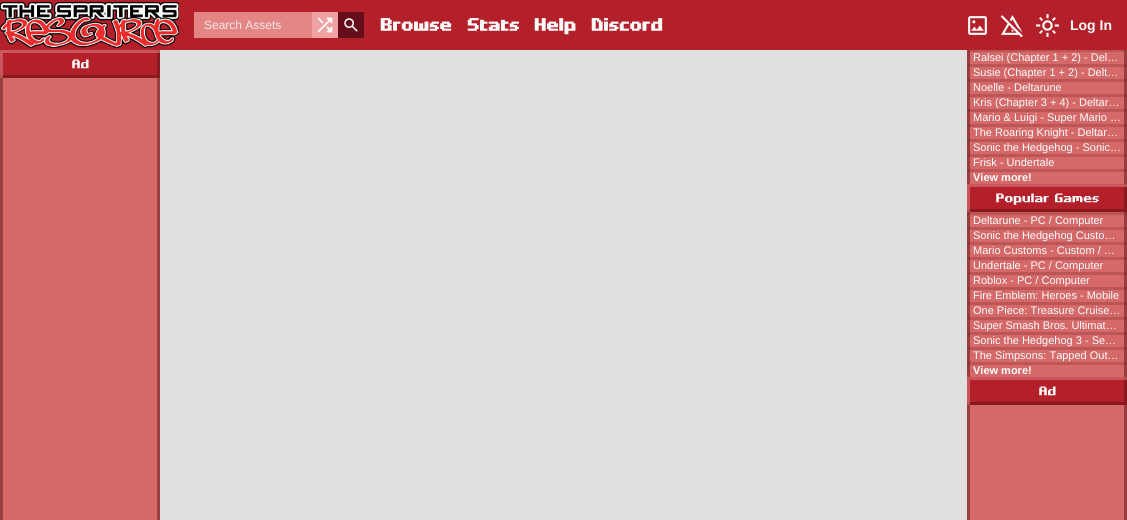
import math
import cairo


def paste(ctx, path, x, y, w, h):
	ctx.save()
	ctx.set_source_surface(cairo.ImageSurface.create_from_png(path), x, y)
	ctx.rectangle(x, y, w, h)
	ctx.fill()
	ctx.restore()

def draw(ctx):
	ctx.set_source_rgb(0.835, 0.408, 0.408)
	ctx.paint()
	ctx.set_source_rgb(0.596, 0.243, 0.243)
	ctx.rectangle(967, 49, 3, 135)
	ctx.rectangle(1124, 49, 3, 135)
	ctx.fill()
	ctx.set_source_rgb(0.706, 0.125, 0.165)
	ctx.rectangle(0, 0, 1127, 50)
	ctx.fill()
	paste(ctx, 'media/1.png', 0, 2, 179, 46)
	ctx.set_source_rgb(0.894, 0.522, 0.522)
	ctx.rectangle(194, 12, 118, 26)
	ctx.fill()
	ctx.select_font_face('Liberation Sans')
	ctx.set_font_size(12)
	ctx.set_source_rgb(0.98, 0.906, 0.906)
	ctx.move_to(204, 29)
	ctx.show_text('Search Assets')
	ctx.set_source_rgb(0.941, 0.635, 0.635)
	ctx.rectangle(312, 12, 26, 26)
	ctx.fill()
	paste(ctx, 'media/2.png', 317, 17, 16, 16)
	ctx.set_source_rgb(0.396, 0.051, 0.106)
	ctx.rectangle(338, 12, 26, 26)
	ctx.fill()
	paste(ctx, 'media/3.png', 344, 18, 14, 14)
	ctx.select_font_face('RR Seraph', cairo.FONT_SLANT_NORMAL, cairo.FONT_WEIGHT_BOLD)
	ctx.set_font_size(14)
	ctx.set_source_rgb(1, 1, 1)
	for x, y, s in [
		(379, 29, 'Browse'),
		(466, 29, 'Stats'),
		(533, 29, 'Help'),
		(590, 29, 'Discord'),
	]:
		ctx.move_to(x, y)
		ctx.show_text(s)
	paste(ctx, 'media/4.png', 968, 16, 19, 19)
	paste(ctx, 'media/5.png', 1000, 15, 23, 23)
	paste(ctx, 'media/6.png', 1036, 14, 23, 23)
	ctx.select_font_face('Liberation Sans', cairo.FONT_SLANT_NORMAL, cairo.FONT_WEIGHT_BOLD)
	ctx.move_to(1070, 30)
	ctx.show_text('Log In')
	ctx.set_source_rgb(0.596, 0.243, 0.243)
	ctx.rectangle(0, 78, 3, 442)
	ctx.rectangle(157, 78, 3, 442)
	ctx.fill()
	ctx.set_source_rgb(0.706, 0.125, 0.165)
	ctx.rectangle(0, 50, 157, 25)
	ctx.fill()
	ctx.save()
	ctx.rectangle(0, 50, 160, 28)
	ctx.clip()
	ctx.set_source_rgb(0.533, 0.102, 0.122)
	ctx.set_fill_rule(cairo.FILL_RULE_EVEN_ODD)
	ctx.new_path()
	ctx.move_to(-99, -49)
	ctx.line_to(259, -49)
	ctx.line_to(259, 177)
	ctx.line_to(-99, 177)
	ctx.close_path()
	ctx.move_to(-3, 47)
	ctx.line_to(157, 47)
	ctx.line_to(157, 75)
	ctx.line_to(-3, 75)
	ctx.close_path()
	ctx.fill()
	ctx.set_source_rgba(0.863, 0.549, 0.549, 0.5)
	ctx.new_path()
	ctx.move_to(-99, -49)
	ctx.line_to(259, -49)
	ctx.line_to(259, 177)
	ctx.line_to(-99, 177)
	ctx.close_path()
	ctx.move_to(3, 53)
	ctx.line_to(163, 53)
	ctx.line_to(163, 81)
	ctx.line_to(3, 81)
	ctx.close_path()
	ctx.fill()
	ctx.restore()
	ctx.select_font_face('RR Seraph')
	ctx.set_font_size(10)
	ctx.set_source_rgb(1, 1, 1)
	ctx.move_to(71, 67)
	ctx.show_text('Ad')
	ctx.set_source_rgb(0.878, 0.878, 0.878)
	ctx.rectangle(160, 50, 807, 470)
	ctx.fill()
	ctx.set_source_rgb(0.596, 0.243, 0.243)
	ctx.rectangle(967, 405, 3, 115)
	ctx.rectangle(1124, 405, 3, 115)
	ctx.fill()
	ctx.set_source_rgba(0.357, 0.078, 0.078, 0.2)
	ctx.rectangle(967, 50, 160, 2)
	ctx.fill()
	ctx.select_font_face('Liberation Sans')
	ctx.set_font_size(11)
	ctx.set_source_rgb(1, 1, 1)
	ctx.move_to(973, 61)
	ctx.show_text('Ralsei (Chapter 1 + 2) - Del…')
	ctx.set_source_rgba(0.357, 0.078, 0.078, 0.2)
	ctx.rectangle(967, 64, 160, 3)
	ctx.fill()
	ctx.set_source_rgb(1, 1, 1)
	ctx.move_to(973, 76)
	ctx.show_text('Susie (Chapter 1 + 2) - Delt…')
	ctx.set_source_rgba(0.357, 0.078, 0.078, 0.2)
	ctx.rectangle(967, 79, 160, 3)
	ctx.fill()
	ctx.set_source_rgb(1, 1, 1)
	ctx.move_to(973, 91)
	ctx.show_text('Noelle - Deltarune')
	ctx.set_source_rgba(0.357, 0.078, 0.078, 0.2)
	ctx.rectangle(967, 94, 160, 3)
	ctx.fill()
	ctx.set_source_rgb(1, 1, 1)
	ctx.move_to(973, 106)
	ctx.show_text('Kris (Chapter 3 + 4) - Deltar…')
	ctx.set_source_rgba(0.357, 0.078, 0.078, 0.2)
	ctx.rectangle(967, 109, 160, 3)
	ctx.fill()
	ctx.set_source_rgb(1, 1, 1)
	ctx.move_to(973, 121)
	ctx.show_text('Mario & Luigi - Super Mario …')
	ctx.set_source_rgba(0.357, 0.078, 0.078, 0.2)
	ctx.rectangle(967, 124, 160, 3)
	ctx.fill()
	ctx.set_source_rgb(1, 1, 1)
	ctx.move_to(973, 136)
	ctx.show_text('The Roaring Knight - Deltar…')
	ctx.set_source_rgba(0.357, 0.078, 0.078, 0.2)
	ctx.rectangle(967, 139, 160, 3)
	ctx.fill()
	ctx.set_source_rgb(1, 1, 1)
	ctx.move_to(973, 151)
	ctx.show_text('Sonic the Hedgehog - Sonic…')
	ctx.set_source_rgba(0.357, 0.078, 0.078, 0.2)
	ctx.rectangle(967, 154, 160, 3)
	ctx.fill()
	ctx.set_source_rgb(1, 1, 1)
	ctx.move_to(973, 166)
	ctx.show_text('Frisk - Undertale')
	ctx.set_source_rgba(0.357, 0.078, 0.078, 0.2)
	ctx.rectangle(967, 169, 160, 3)
	ctx.fill()
	ctx.select_font_face('Liberation Sans', cairo.FONT_SLANT_NORMAL, cairo.FONT_WEIGHT_BOLD)
	ctx.set_source_rgb(1, 1, 1)
	ctx.move_to(973, 181)
	ctx.show_text('View more!')
	ctx.set_source_rgb(0.706, 0.125, 0.165)
	ctx.rectangle(967, 184, 157, 25)
	ctx.fill()
	ctx.save()
	ctx.rectangle(967, 184, 160, 28)
	ctx.clip()
	ctx.set_source_rgb(0.533, 0.102, 0.122)
	ctx.set_fill_rule(cairo.FILL_RULE_EVEN_ODD)
	ctx.new_path()
	ctx.move_to(868, 85)
	ctx.line_to(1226, 85)
	ctx.line_to(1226, 311)
	ctx.line_to(868, 311)
	ctx.close_path()
	ctx.move_to(964, 181)
	ctx.line_to(1124, 181)
	ctx.line_to(1124, 209)
	ctx.line_to(964, 209)
	ctx.close_path()
	ctx.fill()
	ctx.set_source_rgba(0.863, 0.549, 0.549, 0.5)
	ctx.new_path()
	ctx.move_to(868, 85)
	ctx.line_to(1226, 85)
	ctx.line_to(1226, 311)
	ctx.line_to(868, 311)
	ctx.close_path()
	ctx.move_to(970, 187)
	ctx.line_to(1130, 187)
	ctx.line_to(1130, 215)
	ctx.line_to(970, 215)
	ctx.close_path()
	ctx.fill()
	ctx.restore()
	ctx.select_font_face('RR Seraph')
	ctx.set_font_size(10)
	ctx.set_source_rgb(1, 1, 1)
	ctx.move_to(995, 201)
	ctx.show_text('Popular Games')
	ctx.set_source_rgb(0.596, 0.243, 0.243)
	ctx.rectangle(967, 212, 3, 165)
	ctx.rectangle(1124, 212, 3, 165)
	ctx.fill()
	ctx.set_source_rgba(0.357, 0.078, 0.078, 0.2)
	ctx.rectangle(967, 212, 160, 3)
	ctx.fill()
	ctx.select_font_face('Liberation Sans')
	ctx.set_font_size(11)
	ctx.set_source_rgb(1, 1, 1)
	ctx.move_to(973, 224)
	ctx.show_text('Deltarune - PC / Computer')
	ctx.set_source_rgba(0.357, 0.078, 0.078, 0.2)
	ctx.rectangle(967, 227, 160, 3)
	ctx.fill()
	ctx.set_source_rgb(1, 1, 1)
	ctx.move_to(973, 239)
	ctx.show_text('Sonic the Hedgehog Custo…')
	ctx.set_source_rgba(0.357, 0.078, 0.078, 0.2)
	ctx.rectangle(967, 242, 160, 3)
	ctx.fill()
	ctx.set_source_rgb(1, 1, 1)
	ctx.move_to(973, 254)
	ctx.show_text('Mario Customs - Custom / …')
	ctx.set_source_rgba(0.357, 0.078, 0.078, 0.2)
	ctx.rectangle(967, 257, 160, 3)
	ctx.fill()
	ctx.set_source_rgb(1, 1, 1)
	ctx.move_to(973, 269)
	ctx.show_text('Undertale - PC / Computer')
	ctx.set_source_rgba(0.357, 0.078, 0.078, 0.2)
	ctx.rectangle(967, 272, 160, 3)
	ctx.fill()
	ctx.set_source_rgb(1, 1, 1)
	ctx.move_to(973, 284)
	ctx.show_text('Roblox - PC / Computer')
	ctx.set_source_rgba(0.357, 0.078, 0.078, 0.2)
	ctx.rectangle(967, 287, 160, 3)
	ctx.fill()
	ctx.set_source_rgb(1, 1, 1)
	ctx.move_to(973, 299)
	ctx.show_text('Fire Emblem: Heroes - Mobile')
	ctx.set_source_rgba(0.357, 0.078, 0.078, 0.2)
	ctx.rectangle(967, 302, 160, 3)
	ctx.fill()
	ctx.set_source_rgb(1, 1, 1)
	ctx.move_to(973, 314)
	ctx.show_text('One Piece: Treasure Cruise…')
	ctx.set_source_rgba(0.357, 0.078, 0.078, 0.2)
	ctx.rectangle(967, 317, 160, 3)
	ctx.fill()
	ctx.set_source_rgb(1, 1, 1)
	ctx.move_to(973, 329)
	ctx.show_text('Super Smash Bros. Ultimat…')
	ctx.set_source_rgba(0.357, 0.078, 0.078, 0.2)
	ctx.rectangle(967, 332, 160, 3)
	ctx.fill()
	ctx.set_source_rgb(1, 1, 1)
	ctx.move_to(973, 344)
	ctx.show_text('Sonic the Hedgehog 3 - Se…')
	ctx.set_source_rgba(0.357, 0.078, 0.078, 0.2)
	ctx.rectangle(967, 347, 160, 3)
	ctx.fill()
	ctx.set_source_rgb(1, 1, 1)
	ctx.move_to(973, 359)
	ctx.show_text('The Simpsons: Tapped Out…')
	ctx.set_source_rgba(0.357, 0.078, 0.078, 0.2)
	ctx.rectangle(967, 362, 160, 3)
	ctx.fill()
	ctx.select_font_face('Liberation Sans', cairo.FONT_SLANT_NORMAL, cairo.FONT_WEIGHT_BOLD)
	ctx.set_source_rgb(1, 1, 1)
	ctx.move_to(973, 374)
	ctx.show_text('View more!')
	ctx.set_source_rgb(0.706, 0.125, 0.165)
	ctx.rectangle(967, 377, 157, 25)
	ctx.fill()
	ctx.save()
	ctx.rectangle(967, 377, 160, 28)
	ctx.clip()
	ctx.set_source_rgb(0.533, 0.102, 0.122)
	ctx.set_fill_rule(cairo.FILL_RULE_EVEN_ODD)
	ctx.new_path()
	ctx.move_to(868, 278)
	ctx.line_to(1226, 278)
	ctx.line_to(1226, 504)
	ctx.line_to(868, 504)
	ctx.close_path()
	ctx.move_to(964, 374)
	ctx.line_to(1124, 374)
	ctx.line_to(1124, 402)
	ctx.line_to(964, 402)
	ctx.close_path()
	ctx.fill()
	ctx.set_source_rgba(0.863, 0.549, 0.549, 0.5)
	ctx.new_path()
	ctx.move_to(868, 278)
	ctx.line_to(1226, 278)
	ctx.line_to(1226, 504)
	ctx.line_to(868, 504)
	ctx.close_path()
	ctx.move_to(970, 380)
	ctx.line_to(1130, 380)
	ctx.line_to(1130, 408)
	ctx.line_to(970, 408)
	ctx.close_path()
	ctx.fill()
	ctx.restore()
	ctx.select_font_face('RR Seraph')
	ctx.set_font_size(10)
	ctx.set_source_rgb(1, 1, 1)
	ctx.move_to(1038, 394)
	ctx.show_text('Ad')


surface = cairo.ImageSurface(cairo.FORMAT_RGB24, 1127, 520)
ctx = cairo.Context(surface)
options = cairo.FontOptions()
options.set_hint_metrics(cairo.HINT_METRICS_OFF)
options.set_hint_style(cairo.HINT_STYLE_NONE)
ctx.set_font_options(options)
ctx.set_miter_limit(4)
draw(ctx)
surface.write_to_png('image.png')
